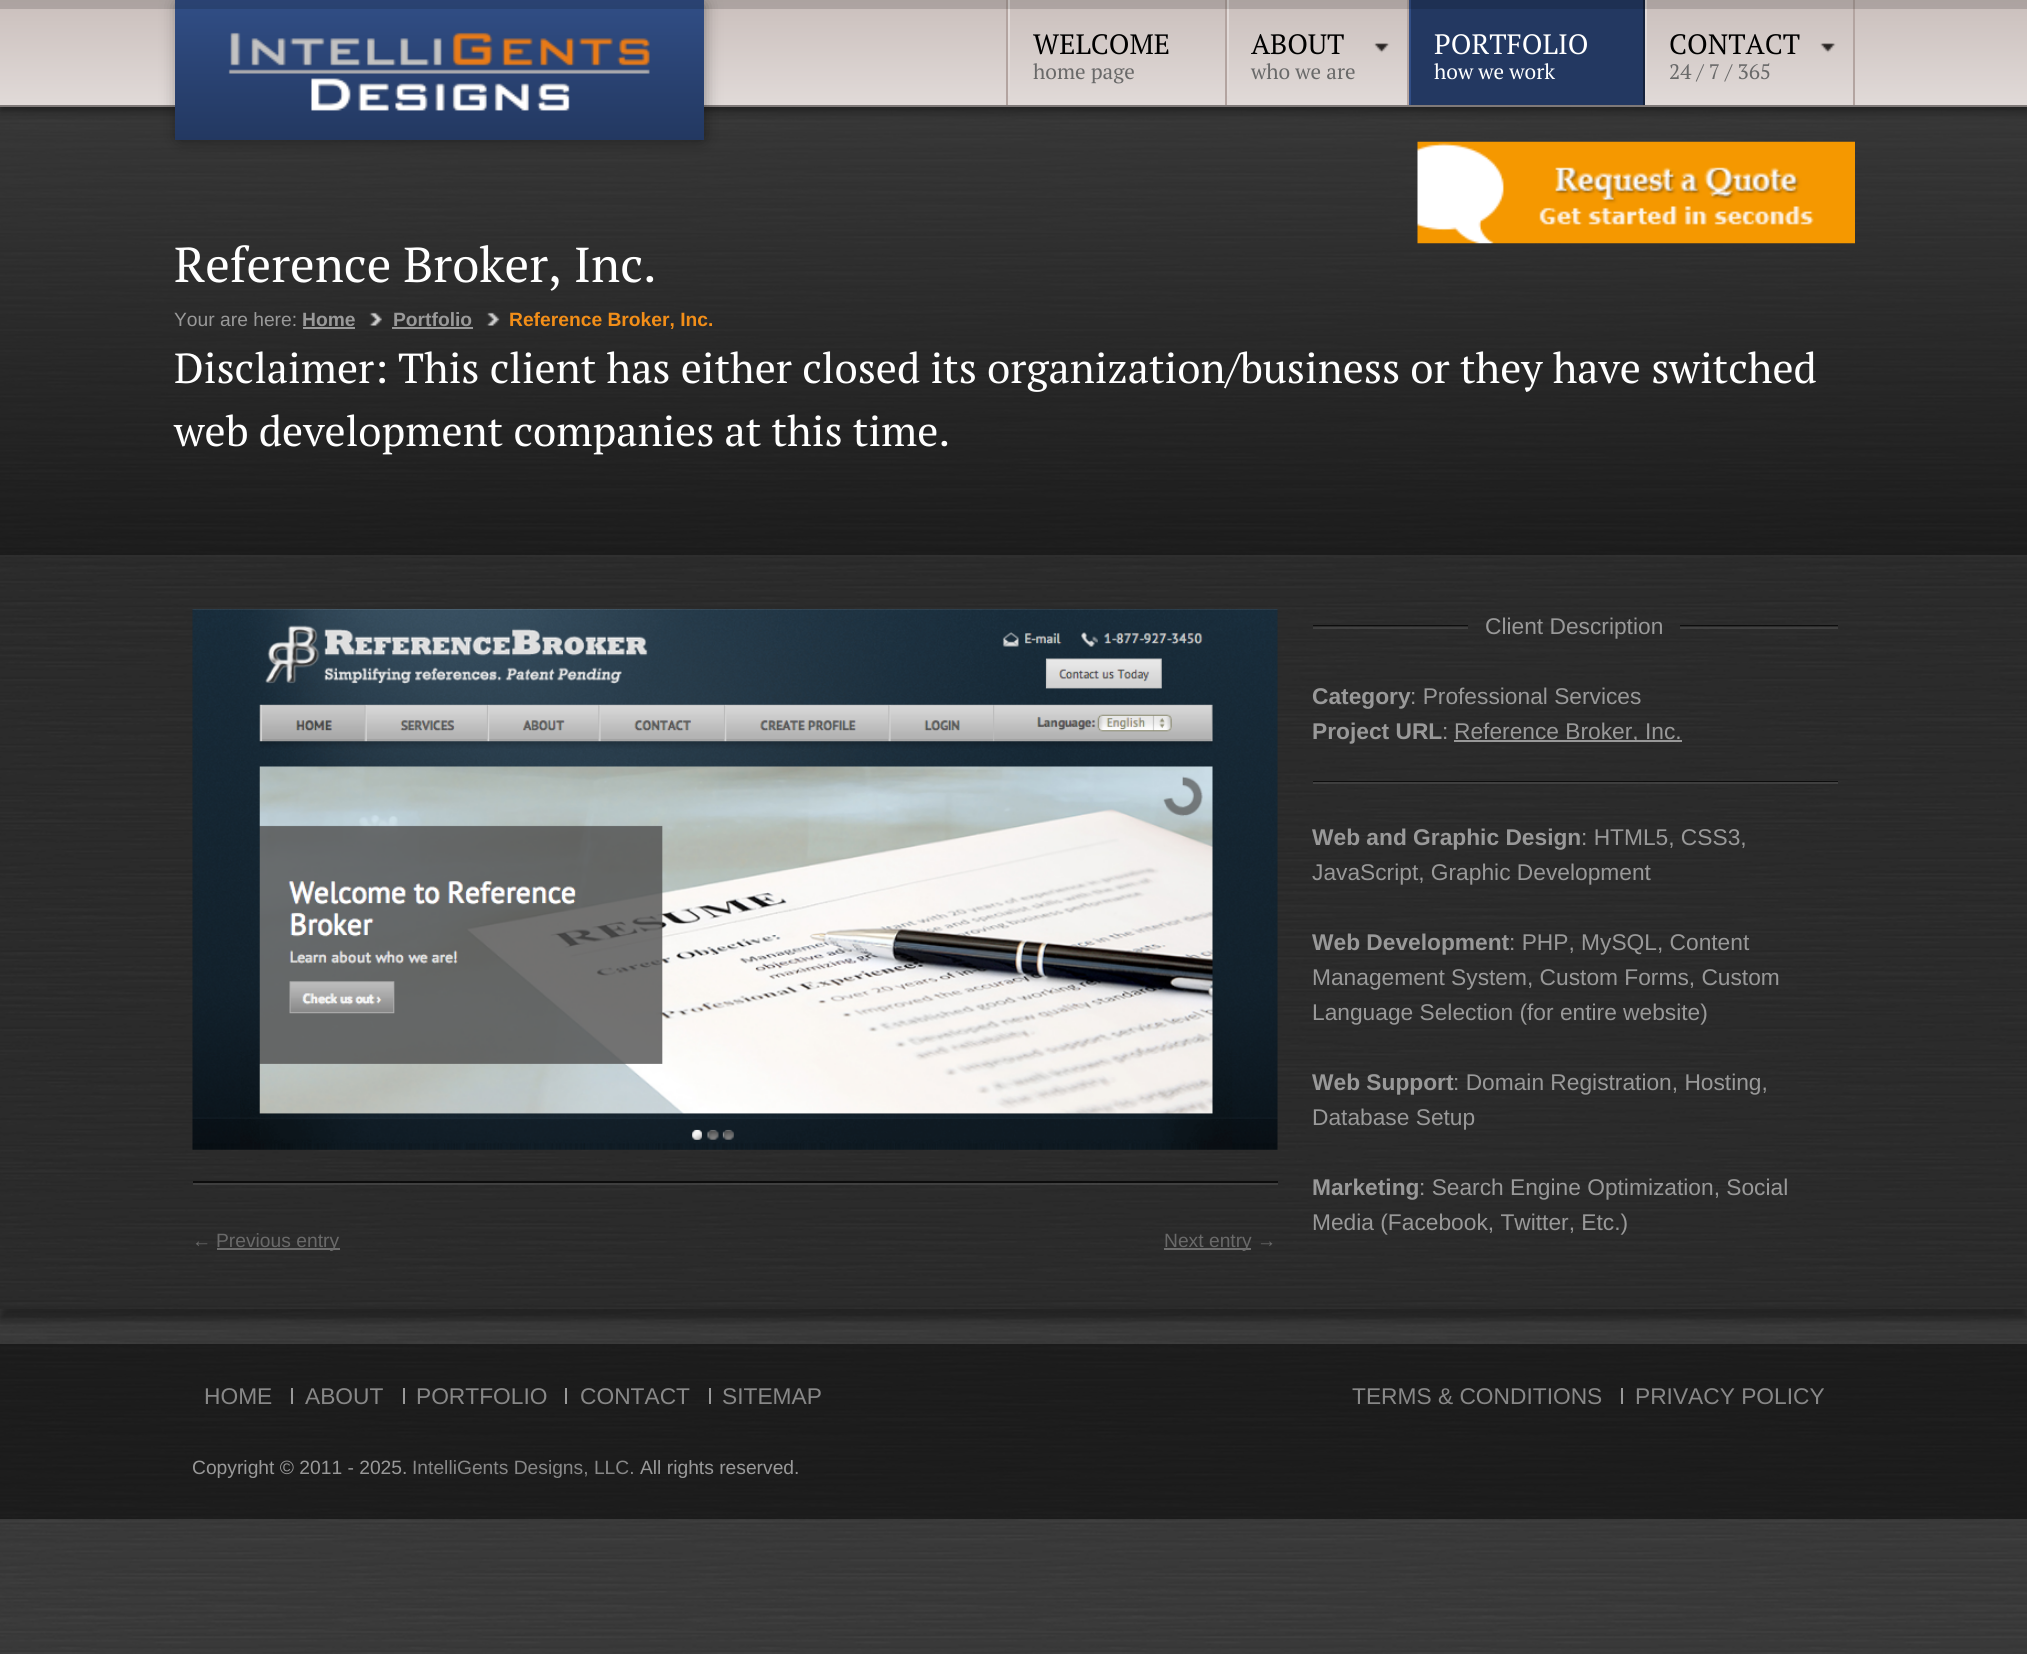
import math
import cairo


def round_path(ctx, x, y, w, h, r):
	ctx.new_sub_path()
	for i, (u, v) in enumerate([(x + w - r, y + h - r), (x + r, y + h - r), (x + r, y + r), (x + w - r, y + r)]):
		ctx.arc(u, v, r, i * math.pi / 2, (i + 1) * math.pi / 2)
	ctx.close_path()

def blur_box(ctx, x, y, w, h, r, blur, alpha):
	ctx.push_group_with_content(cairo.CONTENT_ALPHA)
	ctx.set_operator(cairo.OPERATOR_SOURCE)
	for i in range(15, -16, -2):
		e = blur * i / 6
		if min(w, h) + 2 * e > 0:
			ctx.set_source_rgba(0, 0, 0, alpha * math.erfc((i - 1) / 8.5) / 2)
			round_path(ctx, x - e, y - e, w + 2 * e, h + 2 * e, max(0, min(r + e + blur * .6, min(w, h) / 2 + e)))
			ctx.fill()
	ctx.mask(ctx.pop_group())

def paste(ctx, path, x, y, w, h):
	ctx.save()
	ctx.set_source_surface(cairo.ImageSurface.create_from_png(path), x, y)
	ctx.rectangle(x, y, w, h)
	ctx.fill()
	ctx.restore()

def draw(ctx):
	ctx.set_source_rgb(1, 1, 1)
	ctx.paint()
	paste(ctx, 'media/1.png', 0, 107, 2027, 1547)
	ctx.set_source_rgb(0, 0, 0)
	blur_box(ctx, 0, 5, 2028, 107, 0, 4.5, 0.4)
	gradient = cairo.LinearGradient(1014, 0, 1014, 105)
	gradient.add_color_stop_rgba(0, 0.792, 0.749, 0.737, 1)
	gradient.add_color_stop_rgba(1, 0.882, 0.855, 0.847, 1)
	ctx.set_source(gradient)
	ctx.rectangle(0, 0, 2027, 105)
	ctx.fill()
	ctx.set_source_rgb(0.498, 0.475, 0.471)
	ctx.rectangle(0, 105, 2027, 2)
	ctx.fill()
	ctx.set_source_rgb(0, 0, 0)
	blur_box(ctx, 180, 5, 522, 133, 0, 9, 0.5)
	gradient = cairo.LinearGradient(439, 0, 439, 140)
	gradient.add_color_stop_rgba(0, 0.192, 0.306, 0.525, 1)
	gradient.add_color_stop_rgba(1, 0.137, 0.22, 0.38, 1)
	ctx.set_source(gradient)
	ctx.rectangle(175, 0, 529, 140)
	ctx.fill()
	ctx.set_source_rgb(0.702, 0.643, 0.627)
	ctx.rectangle(1006, 0, 2, 105)
	ctx.rectangle(1225, 0, 2, 105)
	ctx.fill()
	ctx.set_source_rgb(0.882, 0.855, 0.847)
	ctx.rectangle(1008, 0, 2, 96)
	ctx.fill()
	ctx.set_source_rgb(0.702, 0.643, 0.627)
	ctx.rectangle(1407, 0, 2, 105)
	ctx.fill()
	ctx.set_source_rgb(0.882, 0.855, 0.847)
	ctx.rectangle(1227, 0, 2, 96)
	ctx.fill()
	ctx.set_source_rgb(0.137, 0.22, 0.38)
	ctx.rectangle(1411, 0, 232, 105)
	ctx.fill()
	ctx.set_source_rgb(0.082, 0.133, 0.235)
	ctx.rectangle(1643, 0, 2, 105)
	ctx.fill()
	ctx.set_source_rgb(0.192, 0.306, 0.525)
	ctx.rectangle(1409, 0, 2, 105)
	ctx.fill()
	ctx.set_source_rgb(0.702, 0.643, 0.627)
	ctx.rectangle(1853, 0, 2, 105)
	ctx.fill()
	ctx.set_source_rgb(0.882, 0.855, 0.847)
	ctx.rectangle(1645, 0, 2, 96)
	ctx.fill()
	ctx.set_source_rgba(0, 0, 0, 0.15)
	ctx.rectangle(0, 0, 2027, 9)
	ctx.fill()
	paste(ctx, 'media/2.png', 228, 32, 422, 79)
	ctx.select_font_face('PT Serif')
	ctx.set_font_size(28)
	ctx.set_source_rgb(0, 0, 0)
	ctx.move_to(1033, 54)
	ctx.show_text('WELCOME')
	ctx.set_font_size(21)
	ctx.set_source_rgb(0.412, 0.412, 0.412)
	ctx.move_to(1033, 79)
	ctx.show_text('home page')
	ctx.set_font_size(28)
	ctx.set_source_rgb(0, 0, 0)
	ctx.move_to(1251, 54)
	ctx.show_text('ABOUT')
	paste(ctx, 'media/3.png', 1373, 43, 17, 10)
	ctx.set_font_size(21)
	ctx.set_source_rgb(0.412, 0.412, 0.412)
	ctx.move_to(1251, 79)
	ctx.show_text('who we are')
	ctx.set_font_size(28)
	ctx.set_source_rgb(1, 1, 1)
	ctx.move_to(1434, 54)
	ctx.show_text('PORTFOLIO')
	ctx.set_font_size(21)
	ctx.move_to(1434, 79)
	ctx.show_text('how we work')
	ctx.set_font_size(28)
	ctx.set_source_rgb(0, 0, 0)
	ctx.move_to(1669, 54)
	ctx.show_text('CONTACT')
	paste(ctx, 'media/4.png', 1820, 43, 16, 10)
	ctx.set_font_size(21)
	ctx.set_source_rgb(0.412, 0.412, 0.412)
	ctx.move_to(1669, 79)
	ctx.show_text('24 / 7 / 365')
	paste(ctx, 'media/5.png', 1417, 141, 438, 103)
	ctx.set_font_size(49)
	ctx.set_source_rgb(1, 1, 1)
	ctx.move_to(174, 282)
	ctx.show_text('Reference Broker, Inc.')
	ctx.select_font_face('Liberation Sans')
	ctx.set_font_size(19.25)
	ctx.set_source_rgb(0.6, 0.6, 0.6)
	ctx.move_to(174, 326)
	ctx.show_text('Your are here:')
	ctx.select_font_face('Liberation Sans', cairo.FONT_SLANT_NORMAL, cairo.FONT_WEIGHT_BOLD)
	ctx.move_to(302, 326)
	ctx.show_text('Home')
	ctx.rectangle(303, 327, 52, 2)
	ctx.fill()
	paste(ctx, 'media/6.png', 369, 312, 13, 14)
	ctx.move_to(393, 326)
	ctx.show_text('Portfolio')
	ctx.rectangle(392, 327, 81, 2)
	ctx.fill()
	paste(ctx, 'media/7.png', 486, 312, 14, 14)
	ctx.set_source_rgb(0.949, 0.557, 0.094)
	ctx.move_to(509, 326)
	ctx.show_text('Reference Broker, Inc.')
	ctx.select_font_face('PT Serif')
	ctx.set_font_size(42)
	ctx.set_source_rgb(1, 1, 1)
	ctx.move_to(174, 383)
	ctx.show_text('Disclaimer: This client has either closed its organization/business or they have switched')
	ctx.move_to(174, 446)
	ctx.show_text('web development companies at this time.')
	ctx.save()
	ctx.rectangle(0, 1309, 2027, 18)
	ctx.clip()
	ctx.set_source_rgb(0, 0, 0)
	blur_box(ctx, 0, 565, 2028, 755, 0, 4.5, 0.4)
	ctx.restore()
	ctx.set_source_rgba(0, 0, 0, 0.25)
	ctx.rectangle(0, 555, 2027, 754)
	ctx.fill()
	ctx.set_source_rgba(0.2, 0.2, 0.2, 0.5)
	ctx.rectangle(0, 555, 2027, 2)
	ctx.fill()
	ctx.save()
	ctx.rectangle(1313, 609, 525, 35)
	ctx.clip()
	ctx.set_source_rgba(0, 0, 0, 0.7)
	ctx.new_path()
	ctx.move_to(-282, 625)
	ctx.line_to(-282, 629)
	ctx.line_to(-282, 626)
	ctx.line_to(1468, 626)
	ctx.line_to(1468, 625)
	ctx.close_path()
	ctx.fill()
	ctx.restore()
	ctx.set_source_rgba(1, 1, 1, 0.1)
	ctx.rectangle(1313, 627, 155, 2)
	ctx.fill()
	ctx.select_font_face('Liberation Sans')
	ctx.set_font_size(22.75)
	ctx.set_source_rgb(0.6, 0.6, 0.6)
	ctx.move_to(1485, 634)
	ctx.show_text('Client Description')
	ctx.set_source_rgba(0, 0, 0, 0.7)
	ctx.rectangle(1680, 625, 158, 1)
	ctx.fill()
	ctx.set_source_rgba(1, 1, 1, 0.1)
	ctx.rectangle(1680, 627, 158, 2)
	ctx.fill()
	ctx.select_font_face('Liberation Sans', cairo.FONT_SLANT_NORMAL, cairo.FONT_WEIGHT_BOLD)
	ctx.set_source_rgb(0.6, 0.6, 0.6)
	ctx.move_to(1312, 704)
	ctx.show_text('Category')
	ctx.select_font_face('Liberation Sans')
	ctx.move_to(1410, 704)
	ctx.show_text(': Professional Services')
	ctx.select_font_face('Liberation Sans', cairo.FONT_SLANT_NORMAL, cairo.FONT_WEIGHT_BOLD)
	ctx.move_to(1312, 739)
	ctx.show_text('Project URL')
	ctx.select_font_face('Liberation Sans')
	ctx.move_to(1442, 739)
	ctx.show_text(':')
	ctx.rectangle(1454, 740, 228, 2)
	ctx.fill()
	ctx.move_to(1454, 739)
	ctx.show_text('Reference Broker, Inc.')
	ctx.set_source_rgba(0, 0, 0, 0.7)
	ctx.new_path()
	ctx.move_to(1313, 781)
	ctx.line_to(1313, 782)
	ctx.line_to(1838, 782)
	ctx.line_to(1838, 785)
	ctx.line_to(1838, 781)
	ctx.close_path()
	ctx.fill()
	ctx.set_source_rgba(1, 1, 1, 0.1)
	ctx.rectangle(1313, 782, 525, 2)
	ctx.fill()
	ctx.select_font_face('Liberation Sans', cairo.FONT_SLANT_NORMAL, cairo.FONT_WEIGHT_BOLD)
	ctx.set_source_rgb(0.6, 0.6, 0.6)
	ctx.move_to(1312, 845)
	ctx.show_text('Web and Graphic Design')
	ctx.select_font_face('Liberation Sans')
	ctx.move_to(1581, 845)
	ctx.show_text(': HTML5, CSS3,')
	ctx.move_to(1312, 880)
	ctx.show_text('JavaScript, Graphic Development')
	ctx.select_font_face('Liberation Sans', cairo.FONT_SLANT_NORMAL, cairo.FONT_WEIGHT_BOLD)
	ctx.move_to(1312, 950)
	ctx.show_text('Web Development')
	ctx.select_font_face('Liberation Sans')
	for x, y, s in [
		(1509, 950, ': PHP, MySQL, Content'),
		(1312, 985, 'Management System, Custom Forms, Custom'),
		(1312, 1020, 'Language Selection (for entire website)'),
	]:
		ctx.move_to(x, y)
		ctx.show_text(s)
	ctx.select_font_face('Liberation Sans', cairo.FONT_SLANT_NORMAL, cairo.FONT_WEIGHT_BOLD)
	ctx.move_to(1312, 1090)
	ctx.show_text('Web Support')
	ctx.select_font_face('Liberation Sans')
	ctx.move_to(1453, 1090)
	ctx.show_text(': Domain Registration, Hosting,')
	ctx.move_to(1312, 1125)
	ctx.show_text('Database Setup')
	ctx.select_font_face('Liberation Sans', cairo.FONT_SLANT_NORMAL, cairo.FONT_WEIGHT_BOLD)
	ctx.move_to(1312, 1195)
	ctx.show_text('Marketing')
	ctx.select_font_face('Liberation Sans')
	ctx.move_to(1419, 1195)
	ctx.show_text(': Search Engine Optimization, Social')
	ctx.move_to(1312, 1230)
	ctx.show_text('Media (Facebook, Twitter, Etc.)')
	paste(ctx, 'media/8.png', 192, 609, 1086, 541)
	ctx.set_source_rgba(0, 0, 0, 0.7)
	ctx.new_path()
	ctx.move_to(193, 1181)
	ctx.line_to(193, 1183)
	ctx.line_to(1278, 1183)
	ctx.line_to(1278, 1185)
	ctx.line_to(1278, 1181)
	ctx.close_path()
	ctx.fill()
	ctx.set_source_rgba(1, 1, 1, 0.1)
	ctx.rectangle(193, 1183, 1085, 2)
	ctx.fill()
	ctx.set_font_size(19.25)
	ctx.set_source_rgb(0.412, 0.412, 0.412)
	ctx.move_to(192, 1247)
	ctx.show_text('←')
	ctx.set_source_rgb(0.427, 0.427, 0.427)
	ctx.rectangle(217, 1248, 123, 2)
	ctx.fill()
	ctx.set_source_rgb(0.412, 0.412, 0.412)
	ctx.move_to(216, 1247)
	ctx.show_text('Previous entry')
	ctx.set_source_rgba(0.6, 0.6, 0.6, 0.6)
	ctx.rectangle(1164, 1248, 87, 2)
	ctx.fill()
	ctx.set_source_rgb(0.412, 0.412, 0.412)
	ctx.move_to(1164, 1247)
	ctx.show_text('Next entry →')
	ctx.set_source_rgba(0, 0, 0, 0.5)
	ctx.rectangle(0, 1344, 2027, 175)
	ctx.fill()
	ctx.set_font_size(22.75)
	ctx.set_source_rgb(0.533, 0.533, 0.533)
	ctx.move_to(204, 1404)
	ctx.show_text('HOME')
	ctx.set_source_rgb(0.6, 0.6, 0.6)
	ctx.rectangle(291, 1388, 2, 16)
	ctx.fill()
	ctx.set_source_rgb(0.533, 0.533, 0.533)
	ctx.move_to(305, 1404)
	ctx.show_text('ABOUT')
	ctx.set_source_rgb(0.6, 0.6, 0.6)
	ctx.rectangle(403, 1388, 2, 16)
	ctx.fill()
	ctx.set_source_rgb(0.533, 0.533, 0.533)
	ctx.move_to(416, 1404)
	ctx.show_text('PORTFOLIO')
	ctx.set_source_rgb(0.6, 0.6, 0.6)
	ctx.rectangle(565, 1388, 2, 16)
	ctx.fill()
	ctx.set_source_rgb(0.533, 0.533, 0.533)
	ctx.move_to(580, 1404)
	ctx.show_text('CONTACT')
	ctx.set_source_rgb(0.6, 0.6, 0.6)
	ctx.rectangle(709, 1388, 2, 16)
	ctx.fill()
	ctx.set_source_rgb(0.533, 0.533, 0.533)
	ctx.move_to(722, 1404)
	ctx.show_text('SITEMAP')
	ctx.move_to(1352, 1404)
	ctx.show_text('TERMS & CONDITIONS')
	ctx.set_source_rgb(0.6, 0.6, 0.6)
	ctx.rectangle(1621, 1388, 2, 16)
	ctx.fill()
	ctx.set_source_rgb(0.533, 0.533, 0.533)
	ctx.move_to(1635, 1404)
	ctx.show_text('PRIVACY POLICY')
	ctx.set_font_size(19.25)
	ctx.set_source_rgb(0.6, 0.6, 0.6)
	ctx.move_to(192, 1474)
	ctx.show_text('Copyright © 2011 - 2025.')
	ctx.set_source_rgb(0.533, 0.533, 0.533)
	ctx.move_to(412, 1474)
	ctx.show_text('IntelliGents Designs, LLC.')
	ctx.set_source_rgb(0.6, 0.6, 0.6)
	ctx.move_to(640, 1474)
	ctx.show_text('All rights reserved.')


surface = cairo.ImageSurface(cairo.FORMAT_RGB24, 2027, 1654)
ctx = cairo.Context(surface)
options = cairo.FontOptions()
options.set_hint_metrics(cairo.HINT_METRICS_OFF)
options.set_hint_style(cairo.HINT_STYLE_NONE)
ctx.set_font_options(options)
ctx.set_miter_limit(4)
draw(ctx)
surface.write_to_png('image.png')
